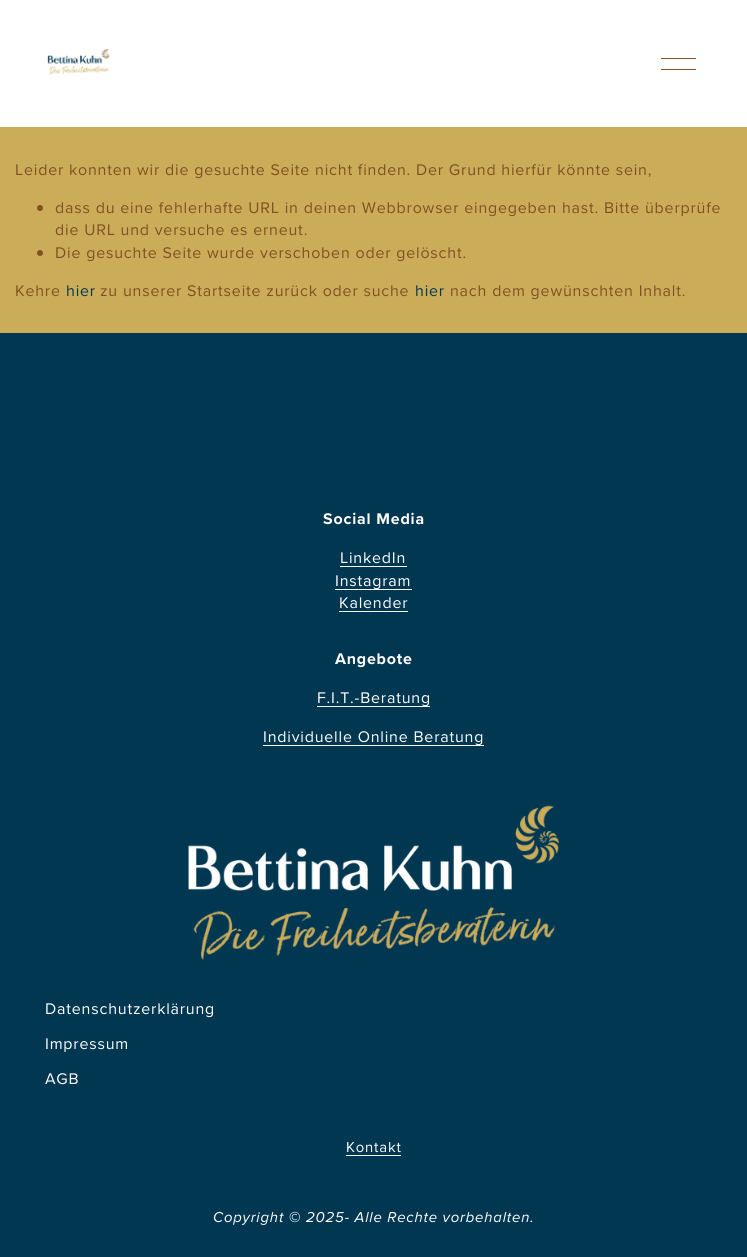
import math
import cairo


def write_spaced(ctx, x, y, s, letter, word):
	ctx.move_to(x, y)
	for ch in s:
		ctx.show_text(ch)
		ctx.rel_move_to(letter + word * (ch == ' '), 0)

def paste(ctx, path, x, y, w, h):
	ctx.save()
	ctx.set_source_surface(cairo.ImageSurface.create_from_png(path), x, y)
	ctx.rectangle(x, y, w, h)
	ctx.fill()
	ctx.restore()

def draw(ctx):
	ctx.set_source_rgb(0.796, 0.675, 0.349)
	ctx.paint()
	ctx.set_source_rgb(1, 1, 1)
	ctx.rectangle(0, 0, 747, 127)
	ctx.fill()
	paste(ctx, 'media/1.png', 47, 48, 63, 27)
	ctx.set_source_rgb(0.502, 0.318, 0.137)
	ctx.rectangle(661, 58, 35, 1)
	ctx.fill()
	ctx.rectangle(661, 69, 35, 1)
	ctx.fill()
	ctx.select_font_face('Proxima Nova')
	ctx.set_font_size(16)
	write_spaced(ctx, 15, 175, 'Leider konnten wir die gesuchte Seite nicht finden. Der Grund hierfür könnte sein,', 0.8, 0)
	ctx.new_path()
	ctx.arc(40, 208, 3, 0, 2 * math.pi)
	ctx.fill()
	write_spaced(ctx, 55, 213, 'dass du eine fehlerhafte URL in deinen Webbrowser eingegeben hast. Bitte überprüfe', 0.8, 0)
	write_spaced(ctx, 55, 235, 'die URL und versuche es erneut.', 0.8, 0)
	ctx.new_path()
	ctx.arc(40, 253, 3, 0, 2 * math.pi)
	ctx.fill()
	write_spaced(ctx, 55, 258, 'Die gesuchte Seite wurde verschoben oder gelöscht.', 0.8, 0)
	write_spaced(ctx, 15, 296, 'Kehre', 0.8, 0)
	ctx.set_source_rgb(0.008, 0.216, 0.322)
	write_spaced(ctx, 66, 296, 'hier', 0.8, 0)
	ctx.set_source_rgb(0.502, 0.318, 0.137)
	write_spaced(ctx, 100, 296, 'zu unserer Startseite zurück oder suche', 0.8, 0)
	ctx.set_source_rgb(0.008, 0.216, 0.322)
	write_spaced(ctx, 415, 296, 'hier', 0.8, 0)
	ctx.set_source_rgb(0.502, 0.318, 0.137)
	write_spaced(ctx, 450, 296, 'nach dem gewünschten Inhalt.', 0.8, 0)
	ctx.set_source_rgb(0.008, 0.216, 0.322)
	ctx.rectangle(0, 333, 747, 924)
	ctx.fill()
	ctx.select_font_face('Proxima Nova', cairo.FONT_SLANT_NORMAL, cairo.FONT_WEIGHT_BOLD)
	ctx.set_source_rgb(1, 1, 1)
	write_spaced(ctx, 323, 524, 'Social Media', 0.8, 0)
	ctx.select_font_face('Proxima Nova')
	write_spaced(ctx, 340, 563, 'LinkedIn', 0.8, 0)
	ctx.rectangle(340, 566, 67, 1)
	ctx.fill()
	ctx.rectangle(335, 589, 77, 1)
	ctx.fill()
	write_spaced(ctx, 335, 586, 'Instagram', 0.8, 0)
	write_spaced(ctx, 339, 608, 'Kalender', 0.8, 0)
	ctx.rectangle(339, 611, 69, 1)
	ctx.fill()
	ctx.select_font_face('Proxima Nova', cairo.FONT_SLANT_NORMAL, cairo.FONT_WEIGHT_BOLD)
	write_spaced(ctx, 335, 664, 'Angebote', 0.8, 0)
	ctx.rectangle(317, 706, 113, 1)
	ctx.fill()
	ctx.select_font_face('Proxima Nova')
	write_spaced(ctx, 317, 703, 'F.I.T.-Beratung', 0.8, 0)
	ctx.rectangle(263, 745, 221, 1)
	ctx.fill()
	write_spaced(ctx, 263, 742, 'Individuelle Online Beratung', 0.8, 0)
	paste(ctx, 'media/2.png', 188, 804, 371, 156)
	for x, y, s in [
		(45, 1014, 'Datenschutzerklärung'),
		(45, 1049, 'Impressum'),
		(45, 1084, 'AGB'),
	]:
		write_spaced(ctx, x, y, s, 0.8, 0)
	ctx.set_font_size(14.9)
	write_spaced(ctx, 346, 1152, 'Kontakt', 0.8, 0)
	ctx.rectangle(346, 1155, 55, 1)
	ctx.fill()
	ctx.select_font_face('Proxima Nova', cairo.FONT_SLANT_ITALIC)
	write_spaced(ctx, 213, 1222, 'Copyright', 0.8, 0)
	ctx.select_font_face('Proxima Nova', cairo.FONT_SLANT_NORMAL, cairo.FONT_WEIGHT_BOLD)
	write_spaced(ctx, 289, 1222, '©', 0.8, 0)
	ctx.select_font_face('Proxima Nova', cairo.FONT_SLANT_ITALIC)
	write_spaced(ctx, 306, 1222, '2025- Alle Rechte vorbehalten.', 0.8, 0)


surface = cairo.ImageSurface(cairo.FORMAT_RGB24, 747, 1257)
ctx = cairo.Context(surface)
options = cairo.FontOptions()
options.set_hint_metrics(cairo.HINT_METRICS_OFF)
options.set_hint_style(cairo.HINT_STYLE_NONE)
ctx.set_font_options(options)
ctx.set_miter_limit(4)
draw(ctx)
surface.write_to_png('image.png')
